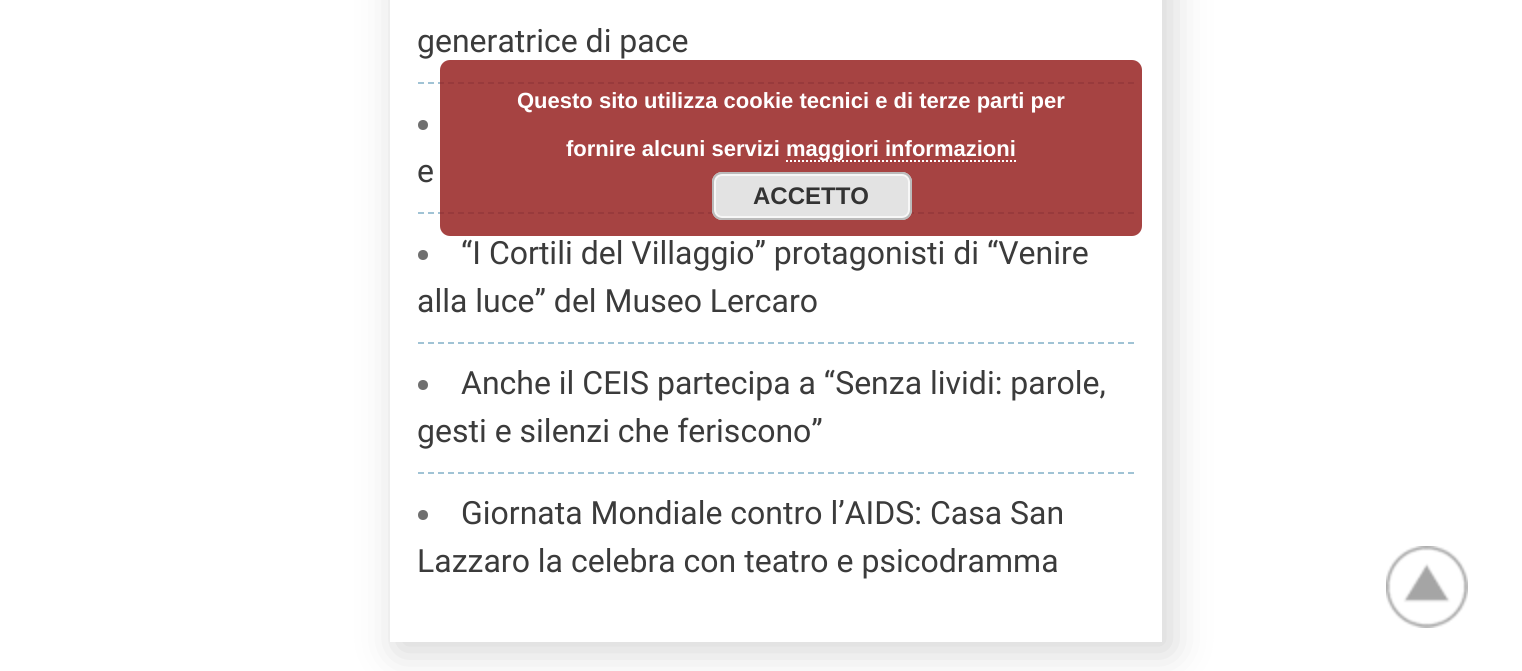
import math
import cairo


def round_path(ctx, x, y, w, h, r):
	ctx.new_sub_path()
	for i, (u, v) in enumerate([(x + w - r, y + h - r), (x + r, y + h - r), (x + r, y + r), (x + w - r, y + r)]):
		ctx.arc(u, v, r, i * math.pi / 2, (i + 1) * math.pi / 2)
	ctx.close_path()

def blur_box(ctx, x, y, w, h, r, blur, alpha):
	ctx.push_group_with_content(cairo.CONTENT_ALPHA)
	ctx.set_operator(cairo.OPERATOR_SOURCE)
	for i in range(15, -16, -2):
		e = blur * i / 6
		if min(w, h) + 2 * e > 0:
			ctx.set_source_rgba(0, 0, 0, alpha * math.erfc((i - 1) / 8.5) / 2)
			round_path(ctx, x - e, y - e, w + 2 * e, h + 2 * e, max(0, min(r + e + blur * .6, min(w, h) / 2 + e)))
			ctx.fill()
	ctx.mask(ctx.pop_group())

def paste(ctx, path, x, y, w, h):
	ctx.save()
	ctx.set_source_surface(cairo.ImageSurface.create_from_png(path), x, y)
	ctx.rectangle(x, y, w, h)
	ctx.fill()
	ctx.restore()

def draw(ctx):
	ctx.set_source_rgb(1, 1, 1)
	ctx.paint()
	ctx.save()
	ctx.set_fill_rule(cairo.FILL_RULE_EVEN_ODD)
	ctx.new_path()
	ctx.move_to(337, 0)
	ctx.line_to(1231, 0)
	ctx.line_to(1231, 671)
	ctx.line_to(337, 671)
	ctx.close_path()
	ctx.move_to(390, -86)
	ctx.line_to(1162, -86)
	ctx.line_to(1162, 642)
	ctx.line_to(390, 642)
	ctx.close_path()
	ctx.clip()
	ctx.set_source_rgb(0.824, 0.824, 0.824)
	blur_box(ctx, 398, -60, 772, 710, 0, 20, 1)
	ctx.restore()
	ctx.new_path()
	ctx.move_to(418, 83)
	ctx.line_to(1134, 83)
	ctx.set_source_rgb(0.627, 0.765, 0.835)
	ctx.set_dash([6, 4])
	ctx.stroke()
	ctx.select_font_face('Roboto')
	ctx.set_font_size(32)
	ctx.set_source_rgb(0.231, 0.231, 0.231)
	ctx.move_to(417, 52)
	ctx.show_text('generatrice di pace')
	ctx.new_path()
	ctx.move_to(418, 213)
	ctx.line_to(1134, 213)
	ctx.set_source_rgb(0.627, 0.765, 0.835)
	ctx.stroke()
	ctx.set_source_rgb(0.435, 0.435, 0.435)
	ctx.arc(423, 125, 5, 0, 2 * math.pi)
	ctx.fill()
	ctx.set_source_rgb(0.231, 0.231, 0.231)
	ctx.move_to(417, 182)
	ctx.show_text('e')
	ctx.new_path()
	ctx.move_to(418, 343)
	ctx.line_to(1134, 343)
	ctx.set_source_rgb(0.627, 0.765, 0.835)
	ctx.stroke()
	ctx.set_source_rgb(0.435, 0.435, 0.435)
	ctx.arc(423, 255, 5, 0, 2 * math.pi)
	ctx.fill()
	ctx.set_source_rgb(0.231, 0.231, 0.231)
	ctx.move_to(461, 264)
	ctx.show_text('“I Cortili del Villaggio” protagonisti di “Venire')
	ctx.move_to(417, 312)
	ctx.show_text('alla luce” del Museo Lercaro')
	ctx.new_path()
	ctx.move_to(418, 473)
	ctx.line_to(1134, 473)
	ctx.set_source_rgb(0.627, 0.765, 0.835)
	ctx.stroke()
	ctx.set_source_rgb(0.435, 0.435, 0.435)
	ctx.arc(423, 385, 5, 0, 2 * math.pi)
	ctx.fill()
	ctx.set_source_rgb(0.231, 0.231, 0.231)
	ctx.move_to(461, 394)
	ctx.show_text('Anche il CEIS partecipa a “Senza lividi: parole,')
	ctx.move_to(417, 442)
	ctx.show_text('gesti e silenzi che feriscono”')
	ctx.set_source_rgb(0.435, 0.435, 0.435)
	ctx.new_path()
	ctx.arc(423, 515, 5, 0, 2 * math.pi)
	ctx.fill()
	ctx.set_source_rgb(0.231, 0.231, 0.231)
	ctx.move_to(461, 524)
	ctx.show_text('Giornata Mondiale contro l’AIDS: Casa San')
	ctx.move_to(417, 572)
	ctx.show_text('Lazzaro la celebra con teatro e psicodramma')
	ctx.set_source_rgba(0.592, 0.137, 0.129, 0.85)
	round_path(ctx, 440, 60, 702, 176, 10)
	ctx.fill()
	ctx.select_font_face('Liberation Sans', cairo.FONT_SLANT_NORMAL, cairo.FONT_WEIGHT_BOLD)
	ctx.set_font_size(22)
	ctx.set_source_rgb(1, 1, 1)
	ctx.move_to(517, 108)
	ctx.show_text('Questo sito utilizza cookie tecnici e di terze parti per')
	ctx.move_to(566, 156)
	ctx.show_text('fornire alcuni servizi')
	ctx.new_path()
	ctx.move_to(786, 161)
	ctx.line_to(1016, 161)
	ctx.set_dash([2, 2])
	ctx.stroke()
	ctx.move_to(786, 156)
	ctx.show_text('maggiori informazioni')
	ctx.set_source_rgb(0.89, 0.89, 0.89)
	round_path(ctx, 712, 172, 200, 48, 10)
	ctx.fill()
	round_path(ctx, 715, 175, 194, 42, 7)
	ctx.set_source_rgb(0.965, 0.965, 0.965)
	ctx.set_dash([])
	ctx.stroke()
	round_path(ctx, 713, 173, 198, 46, 9)
	ctx.set_source_rgb(0.733, 0.733, 0.733)
	ctx.stroke()
	ctx.set_font_size(24)
	ctx.set_source_rgb(0.2, 0.2, 0.2)
	ctx.move_to(753, 204)
	ctx.show_text('ACCETTO')
	paste(ctx, 'media/1.png', 1386, 546, 82, 82)


surface = cairo.ImageSurface(cairo.FORMAT_RGB24, 1522, 671)
ctx = cairo.Context(surface)
options = cairo.FontOptions()
options.set_hint_metrics(cairo.HINT_METRICS_OFF)
options.set_hint_style(cairo.HINT_STYLE_NONE)
ctx.set_font_options(options)
ctx.set_miter_limit(4)
draw(ctx)
surface.write_to_png('image.png')
